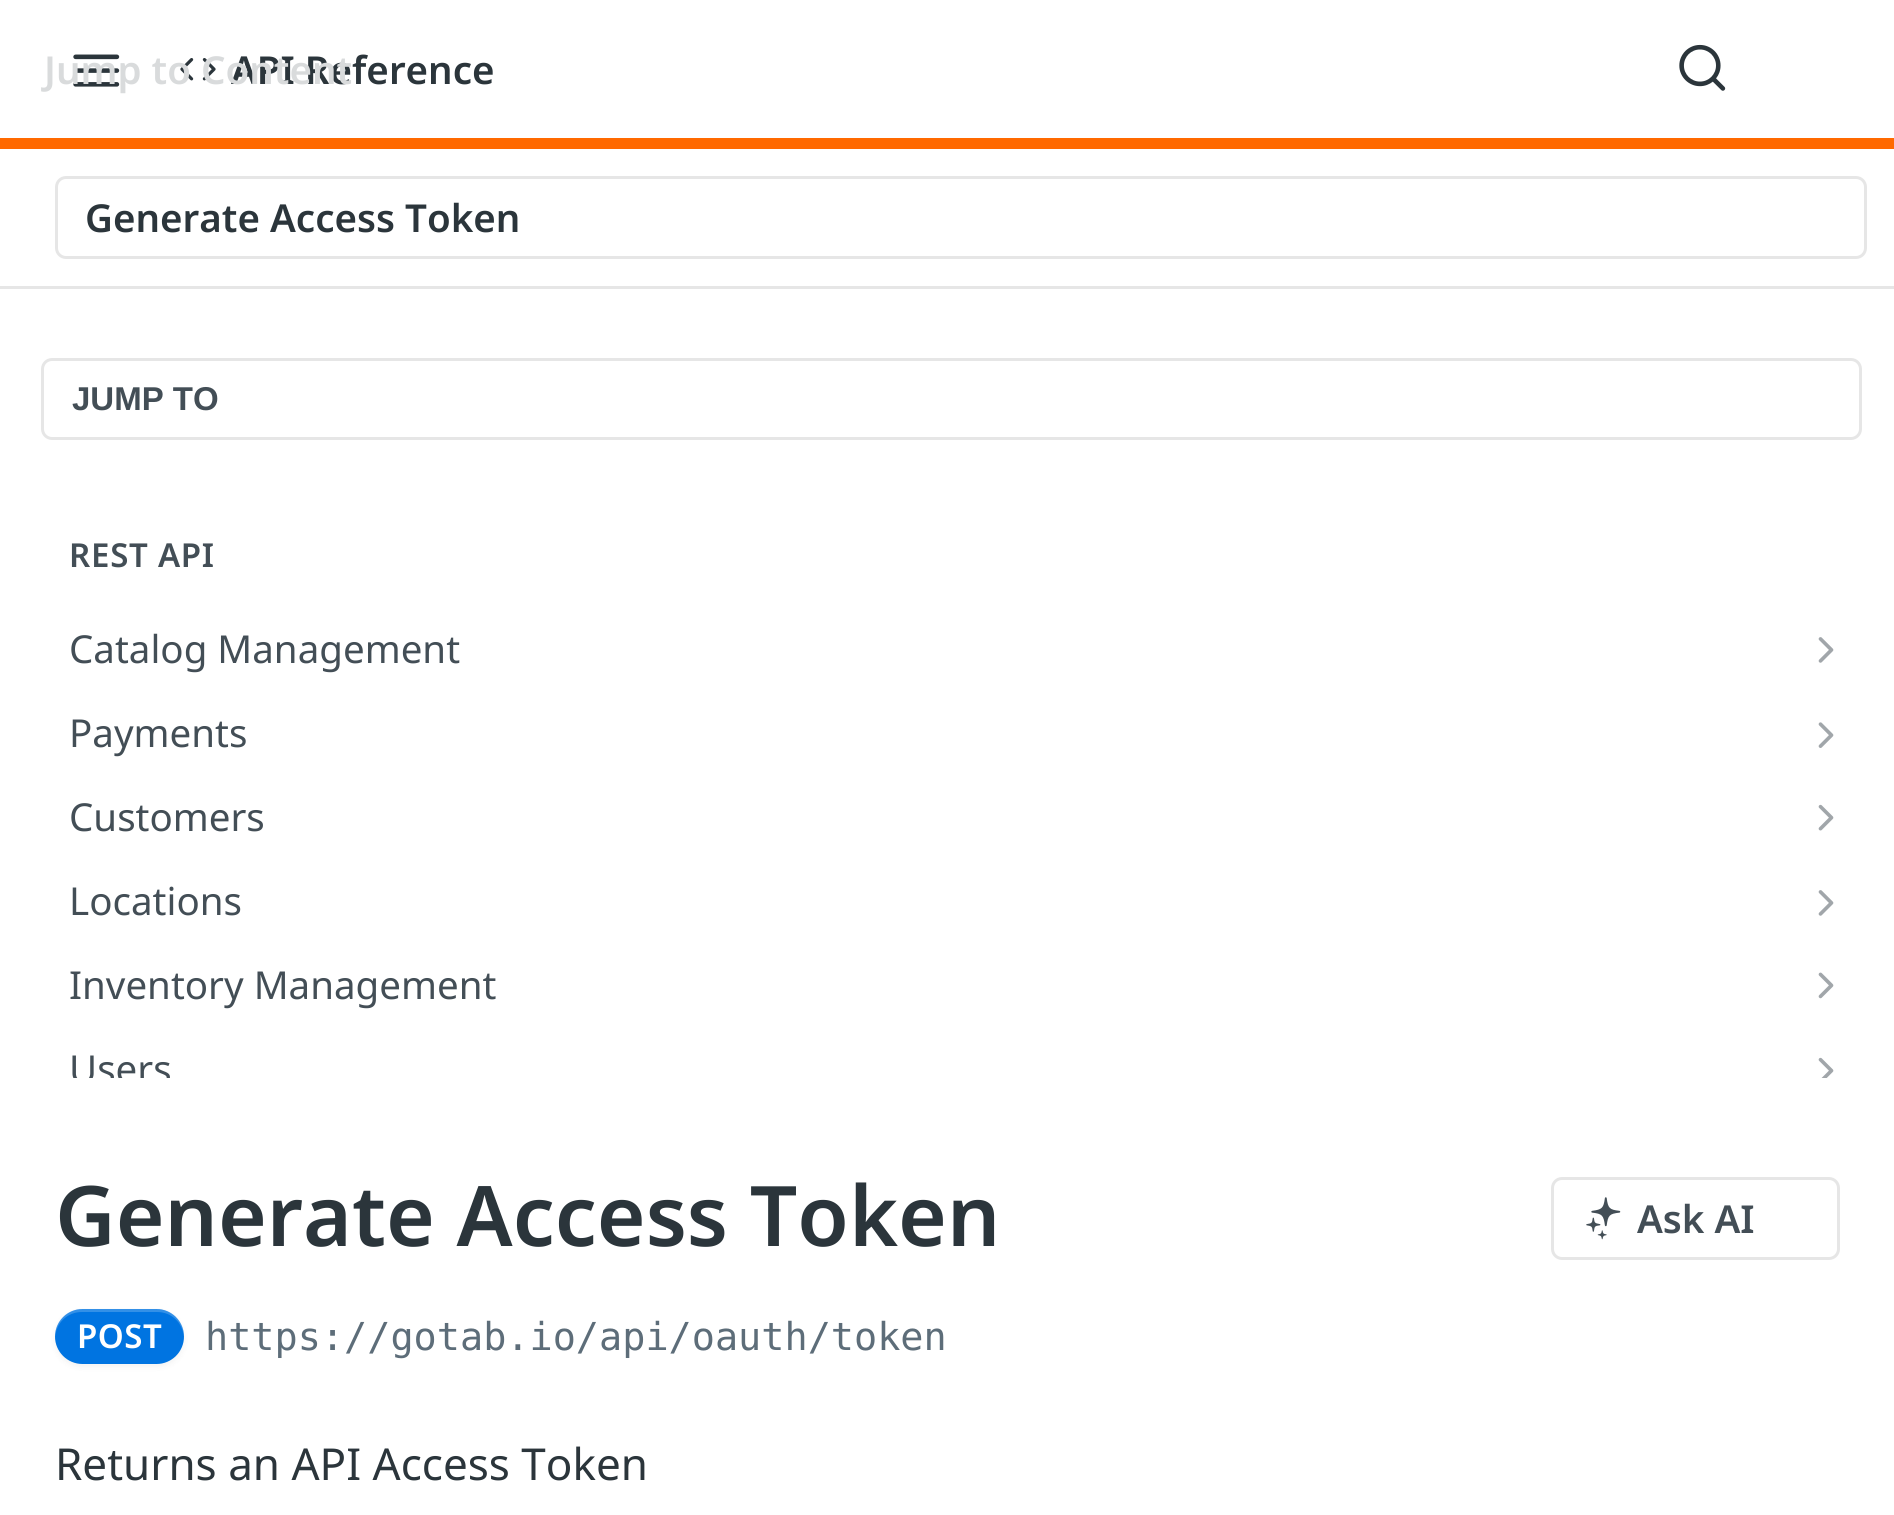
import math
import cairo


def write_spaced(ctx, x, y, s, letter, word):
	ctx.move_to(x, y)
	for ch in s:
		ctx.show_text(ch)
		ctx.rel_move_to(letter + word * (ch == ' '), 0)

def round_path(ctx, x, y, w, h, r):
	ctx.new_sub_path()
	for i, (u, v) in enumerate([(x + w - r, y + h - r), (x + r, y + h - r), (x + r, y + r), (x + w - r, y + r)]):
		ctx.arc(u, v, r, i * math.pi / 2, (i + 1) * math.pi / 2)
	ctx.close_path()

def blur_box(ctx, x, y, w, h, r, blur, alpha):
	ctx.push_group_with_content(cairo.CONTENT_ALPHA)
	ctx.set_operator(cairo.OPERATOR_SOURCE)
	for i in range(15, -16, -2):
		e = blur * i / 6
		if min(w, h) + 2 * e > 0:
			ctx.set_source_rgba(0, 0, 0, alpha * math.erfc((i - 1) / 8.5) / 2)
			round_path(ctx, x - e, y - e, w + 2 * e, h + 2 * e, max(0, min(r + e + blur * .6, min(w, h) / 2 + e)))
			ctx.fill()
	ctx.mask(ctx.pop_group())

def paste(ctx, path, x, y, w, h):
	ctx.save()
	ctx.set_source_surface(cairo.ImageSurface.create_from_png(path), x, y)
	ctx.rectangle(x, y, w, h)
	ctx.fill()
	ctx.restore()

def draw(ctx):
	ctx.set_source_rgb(1, 1, 1)
	ctx.paint()
	ctx.set_source_rgb(0.902, 0.902, 0.902)
	ctx.new_path()
	ctx.move_to(0, 286)
	ctx.line_to(0, 289)
	ctx.line_to(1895, 289)
	ctx.line_to(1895, 3)
	ctx.line_to(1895, 286)
	ctx.close_path()
	ctx.fill()
	ctx.set_source_rgb(1, 0.412, 0)
	ctx.rectangle(0, 138, 1894, 11)
	ctx.fill()
	paste(ctx, 'media/1.png', 73, 54, 47, 33)
	paste(ctx, 'media/2.png', 180, 58, 36, 23)
	ctx.select_font_face('Noto Sans SemiBold')
	ctx.set_font_size(38.5)
	ctx.set_source_rgb(0.169, 0.208, 0.231)
	ctx.move_to(231, 84)
	ctx.show_text('API Reference')
	ctx.set_source_rgb(0.851, 0.859, 0.863)
	ctx.move_to(44, 84)
	ctx.show_text('Jump to Content')
	paste(ctx, 'media/3.png', 1679, 44, 47, 47)
	round_path(ctx, 56.5, 177.5, 1809, 80, 9.5)
	ctx.set_source_rgb(0.902, 0.902, 0.902)
	ctx.set_line_width(3)
	ctx.stroke()
	ctx.set_source_rgb(0.169, 0.208, 0.231)
	ctx.move_to(85, 232)
	ctx.show_text('Generate Access Token')
	round_path(ctx, 42.5, 359.5, 1818, 79, 9.5)
	ctx.set_source_rgb(0.902, 0.902, 0.902)
	ctx.stroke()
	ctx.select_font_face('Liberation Sans', cairo.FONT_SLANT_NORMAL, cairo.FONT_WEIGHT_BOLD)
	ctx.set_font_size(33)
	ctx.set_source_rgb(0.263, 0.306, 0.337)
	ctx.move_to(72, 410)
	ctx.show_text('JUMP TO')
	ctx.select_font_face('Noto Sans SemiBold')
	write_spaced(ctx, 69, 567, 'REST API', 0.75, 0)
	ctx.select_font_face('Noto Sans')
	ctx.set_font_size(38.5)
	ctx.move_to(69, 663)
	ctx.show_text('Catalog Management')
	paste(ctx, 'media/4.png', 1818, 637, 16, 26)
	ctx.move_to(69, 747)
	ctx.show_text('Payments')
	paste(ctx, 'media/5.png', 1818, 722, 16, 26)
	ctx.move_to(69, 831)
	ctx.show_text('Customers')
	paste(ctx, 'media/6.png', 1818, 804, 16, 27)
	ctx.move_to(69, 915)
	ctx.show_text('Locations')
	paste(ctx, 'media/4.png', 1818, 890, 16, 26)
	ctx.move_to(69, 999)
	ctx.show_text('Inventory Management')
	paste(ctx, 'media/7.png', 1818, 972, 16, 27)
	ctx.save()
	ctx.rectangle(0, 286, 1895, 792)
	ctx.clip()
	ctx.move_to(69, 1083)
	ctx.show_text('Users')
	ctx.restore()
	paste(ctx, 'media/8.png', 1818, 1057, 16, 21)
	ctx.select_font_face('Noto Sans SemiBold')
	ctx.set_font_size(83.6)
	ctx.set_source_rgb(0.169, 0.208, 0.231)
	ctx.move_to(55, 1246)
	ctx.show_text('Generate Access Token')
	round_path(ctx, 1552.5, 1178.5, 286, 80, 9.5)
	ctx.set_source_rgb(0.902, 0.902, 0.902)
	ctx.stroke()
	paste(ctx, 'media/9.png', 1586, 1197, 35, 43)
	ctx.set_font_size(38.5)
	ctx.set_source_rgb(0.263, 0.306, 0.337)
	ctx.move_to(1637, 1233)
	ctx.show_text('Ask AI')
	ctx.set_source_rgb(0, 0, 0)
	blur_box(ctx, 55, 1312, 129, 55, 27.5, 3, 0.05)
	ctx.set_source_rgb(0, 0.455, 0.882)
	round_path(ctx, 55, 1309, 129, 55, 27.5)
	ctx.fill()
	ctx.set_source_rgba(1, 1, 1, 0.2)
	ctx.new_path()
	ctx.move_to(82, 1312)
	ctx.line_to(157, 1312)
	ctx.curve_to(172, 1312, 183, 1323, 184, 1338)
	ctx.line_to(184, 1336)
	ctx.curve_to(184, 1321, 172, 1309, 156, 1309)
	ctx.line_to(82, 1309)
	ctx.curve_to(67, 1309, 55, 1321, 55, 1336)
	ctx.line_to(55, 1338)
	ctx.curve_to(56, 1323, 67, 1312, 82, 1312)
	ctx.close_path()
	ctx.fill()
	ctx.set_font_size(33)
	ctx.set_source_rgb(1, 1, 1)
	write_spaced(ctx, 77, 1348, 'POST', 0.5, 0)
	ctx.select_font_face('DejaVu Sans Mono')
	ctx.set_font_size(38.5)
	ctx.set_source_rgb(0.365, 0.427, 0.475)
	ctx.move_to(205, 1350)
	ctx.show_text('https://gotab.io/api/oauth/token')
	ctx.select_font_face('Noto Sans')
	ctx.set_font_size(44)
	ctx.set_source_rgb(0.169, 0.208, 0.231)
	ctx.move_to(55, 1480)
	ctx.show_text('Returns an API Access Token')


surface = cairo.ImageSurface(cairo.FORMAT_RGB24, 1894, 1515)
ctx = cairo.Context(surface)
options = cairo.FontOptions()
options.set_hint_metrics(cairo.HINT_METRICS_OFF)
options.set_hint_style(cairo.HINT_STYLE_NONE)
ctx.set_font_options(options)
ctx.set_miter_limit(4)
draw(ctx)
surface.write_to_png('image.png')
